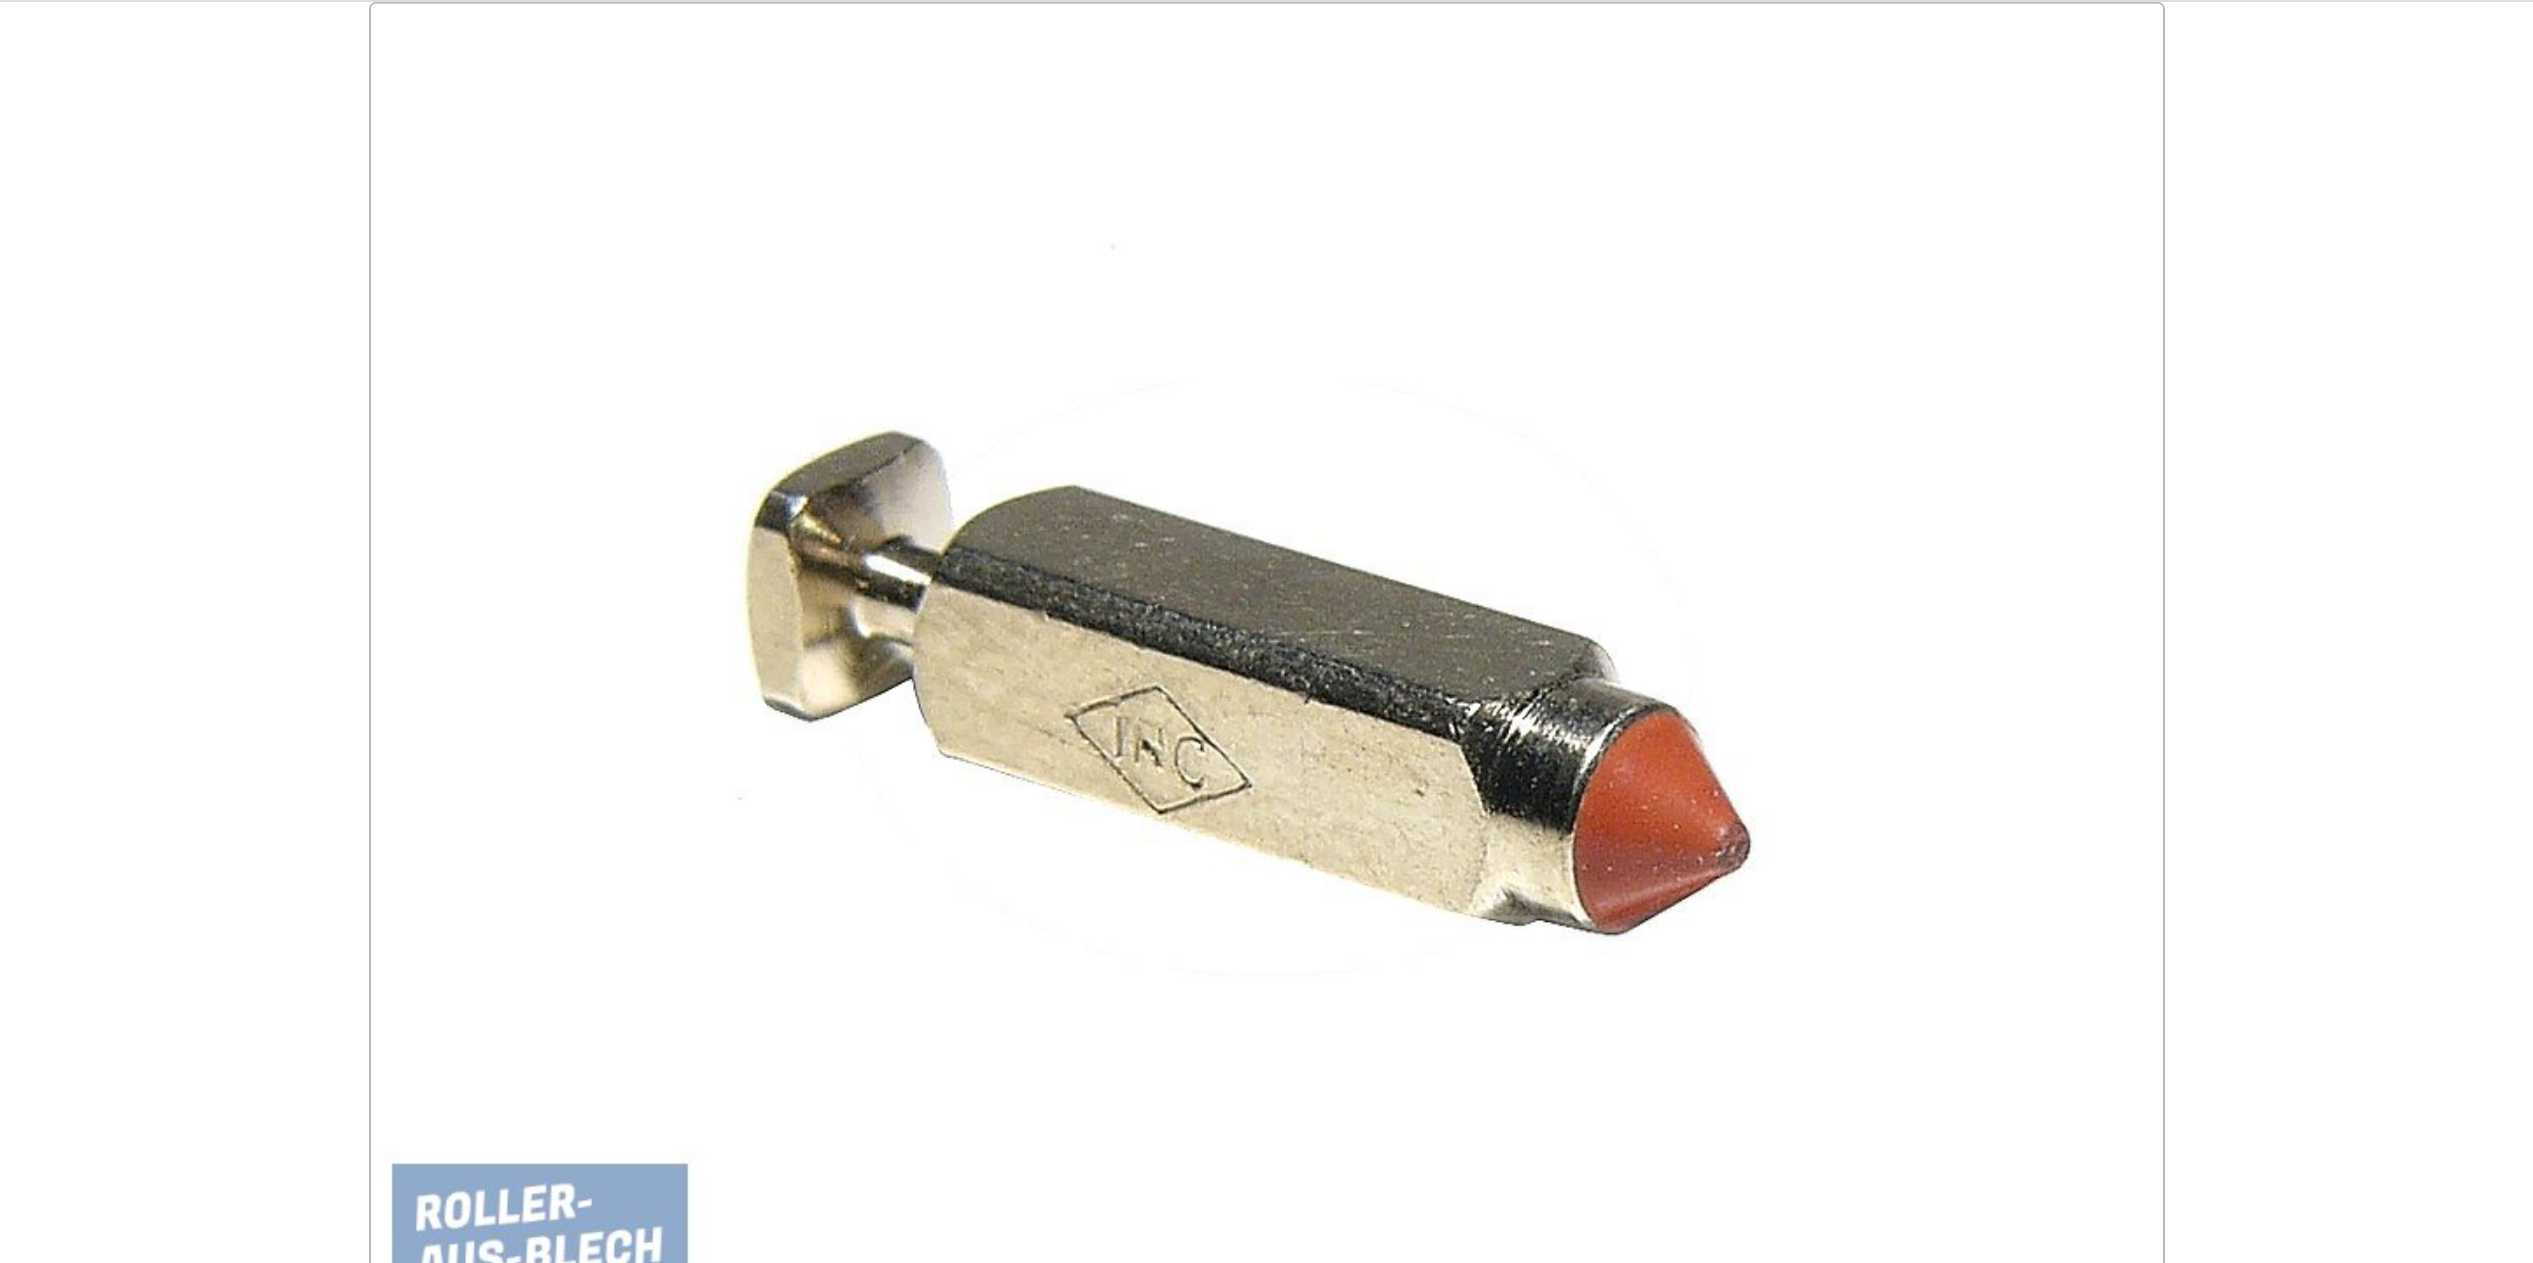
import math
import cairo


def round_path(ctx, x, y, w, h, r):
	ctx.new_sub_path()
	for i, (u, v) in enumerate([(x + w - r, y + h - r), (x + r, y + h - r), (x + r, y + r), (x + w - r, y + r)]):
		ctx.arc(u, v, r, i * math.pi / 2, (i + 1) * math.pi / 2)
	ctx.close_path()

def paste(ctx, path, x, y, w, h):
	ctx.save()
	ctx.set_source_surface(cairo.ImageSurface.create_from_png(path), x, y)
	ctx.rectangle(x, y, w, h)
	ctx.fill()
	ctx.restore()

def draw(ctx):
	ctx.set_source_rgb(1, 1, 1)
	ctx.paint()
	ctx.set_source_rgb(0.867, 0.867, 0.867)
	ctx.rectangle(0, 0, 2533, 2)
	ctx.fill()
	round_path(ctx, 370, 3, 1794, 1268, 6)
	ctx.set_source_rgb(0.733, 0.733, 0.733)
	ctx.stroke()
	paste(ctx, 'media/1.png', 371, 3, 1792, 1260)


surface = cairo.ImageSurface(cairo.FORMAT_RGB24, 2533, 1263)
ctx = cairo.Context(surface)
options = cairo.FontOptions()
options.set_hint_metrics(cairo.HINT_METRICS_OFF)
options.set_hint_style(cairo.HINT_STYLE_NONE)
ctx.set_font_options(options)
ctx.set_miter_limit(4)
draw(ctx)
surface.write_to_png('image.png')
